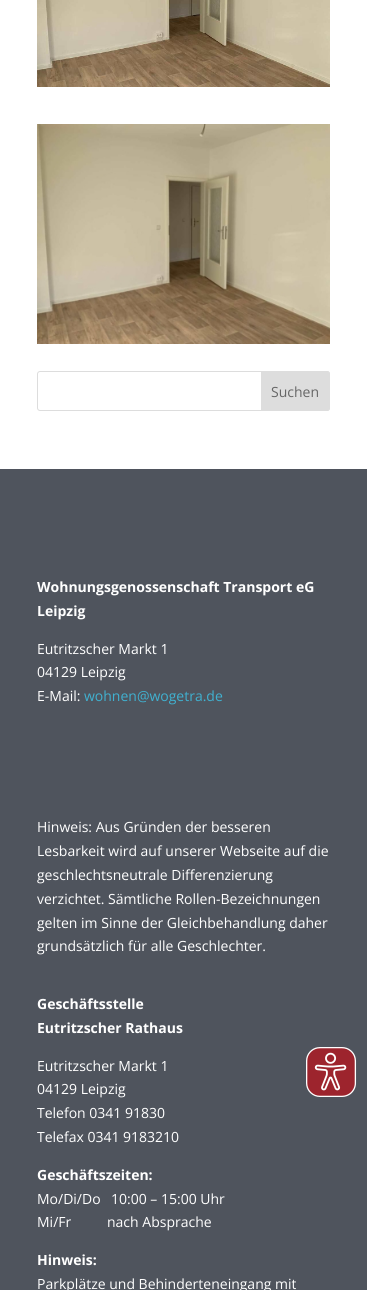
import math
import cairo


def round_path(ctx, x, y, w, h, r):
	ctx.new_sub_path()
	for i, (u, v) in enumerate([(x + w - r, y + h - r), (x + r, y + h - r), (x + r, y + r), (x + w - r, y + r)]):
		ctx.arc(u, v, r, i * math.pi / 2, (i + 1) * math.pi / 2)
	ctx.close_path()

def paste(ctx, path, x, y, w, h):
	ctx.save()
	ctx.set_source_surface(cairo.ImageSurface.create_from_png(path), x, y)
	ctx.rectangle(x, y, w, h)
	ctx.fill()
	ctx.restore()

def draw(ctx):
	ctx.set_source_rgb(1, 1, 1)
	ctx.paint()
	paste(ctx, 'media/1.png', 37, 0, 293, 87)
	paste(ctx, 'media/2.png', 37, 124, 293, 220)
	round_path(ctx, 37.5, 371.5, 292, 39, 2.5)
	ctx.set_source_rgb(0.867, 0.867, 0.867)
	ctx.set_line_width(1)
	ctx.stroke()
	ctx.new_path()
	ctx.move_to(261.5, 371.5)
	ctx.line_to(327, 371.5)
	ctx.curve_to(328.5, 371.5, 329.5, 372.5, 329.5, 374)
	ctx.line_to(329.5, 408)
	ctx.curve_to(329.5, 409.5, 328.5, 410.5, 327, 410.5)
	ctx.line_to(261.5, 410.5)
	ctx.close_path()
	ctx.fill_preserve()
	ctx.stroke()
	ctx.select_font_face('Open Sans')
	ctx.set_font_size(14)
	ctx.set_source_rgb(0.4, 0.4, 0.4)
	ctx.move_to(271, 397)
	ctx.show_text('Suchen')
	ctx.set_source_rgb(0.31, 0.329, 0.365)
	ctx.rectangle(0, 469, 367, 821)
	ctx.fill()
	ctx.select_font_face('Open Sans', cairo.FONT_SLANT_NORMAL, cairo.FONT_WEIGHT_BOLD)
	ctx.set_source_rgb(1, 1, 1)
	ctx.move_to(37, 592)
	ctx.show_text('Wohnungsgenossenschaft Transport eG')
	ctx.move_to(37, 616)
	ctx.show_text('Leipzig')
	ctx.select_font_face('Open Sans')
	for x, y, s in [
		(37, 654, 'Eutritzscher Markt 1'),
		(37, 677, '04129 Leipzig'),
		(37, 701, 'E-Mail:'),
	]:
		ctx.move_to(x, y)
		ctx.show_text(s)
	ctx.set_source_rgb(0.251, 0.694, 0.816)
	ctx.move_to(84, 701)
	ctx.show_text('wohnen@wogetra.de')
	ctx.set_source_rgb(1, 1, 1)
	for x, y, s in [
		(37, 832, 'Hinweis: Aus Gründen der besseren'),
		(37, 856, 'Lesbarkeit wird auf unserer Webseite auf die'),
		(37, 880, 'geschlechtsneutrale Differenzierung'),
		(37, 904, 'verzichtet. Sämtliche Rollen-Bezeichnungen'),
		(37, 928, 'gelten im Sinne der Gleichbehandlung daher'),
		(37, 951, 'grundsätzlich für alle Geschlechter.'),
	]:
		ctx.move_to(x, y)
		ctx.show_text(s)
	ctx.select_font_face('Open Sans', cairo.FONT_SLANT_NORMAL, cairo.FONT_WEIGHT_BOLD)
	ctx.move_to(37, 1009)
	ctx.show_text('Geschäftsstelle')
	ctx.move_to(37, 1033)
	ctx.show_text('Eutritzscher Rathaus')
	ctx.select_font_face('Open Sans')
	for x, y, s in [
		(37, 1071, 'Eutritzscher Markt 1'),
		(37, 1094, '04129 Leipzig'),
		(37, 1118, 'Telefon 0341 91830'),
		(37, 1142, 'Telefax 0341 9183210'),
	]:
		ctx.move_to(x, y)
		ctx.show_text(s)
	ctx.select_font_face('Open Sans', cairo.FONT_SLANT_NORMAL, cairo.FONT_WEIGHT_BOLD)
	ctx.move_to(37, 1180)
	ctx.show_text('Geschäftszeiten:')
	ctx.select_font_face('Open Sans')
	for x, y, s in [
		(37, 1204, 'Mo/Di/Do'),
		(111, 1204, '10:00 – 15:00 Uhr'),
		(37, 1227, 'Mi/Fr'),
		(107, 1227, 'nach Absprache'),
	]:
		ctx.move_to(x, y)
		ctx.show_text(s)
	ctx.select_font_face('Open Sans', cairo.FONT_SLANT_NORMAL, cairo.FONT_WEIGHT_BOLD)
	ctx.move_to(37, 1265)
	ctx.show_text('Hinweis:')
	ctx.select_font_face('Open Sans')
	ctx.move_to(37, 1289)
	ctx.show_text('Parkplätze und Behinderteneingang mit')
	paste(ctx, 'media/3.png', 306, 1047, 51, 50)


surface = cairo.ImageSurface(cairo.FORMAT_RGB24, 367, 1290)
ctx = cairo.Context(surface)
options = cairo.FontOptions()
options.set_hint_metrics(cairo.HINT_METRICS_OFF)
options.set_hint_style(cairo.HINT_STYLE_NONE)
ctx.set_font_options(options)
ctx.set_miter_limit(4)
draw(ctx)
surface.write_to_png('image.png')
